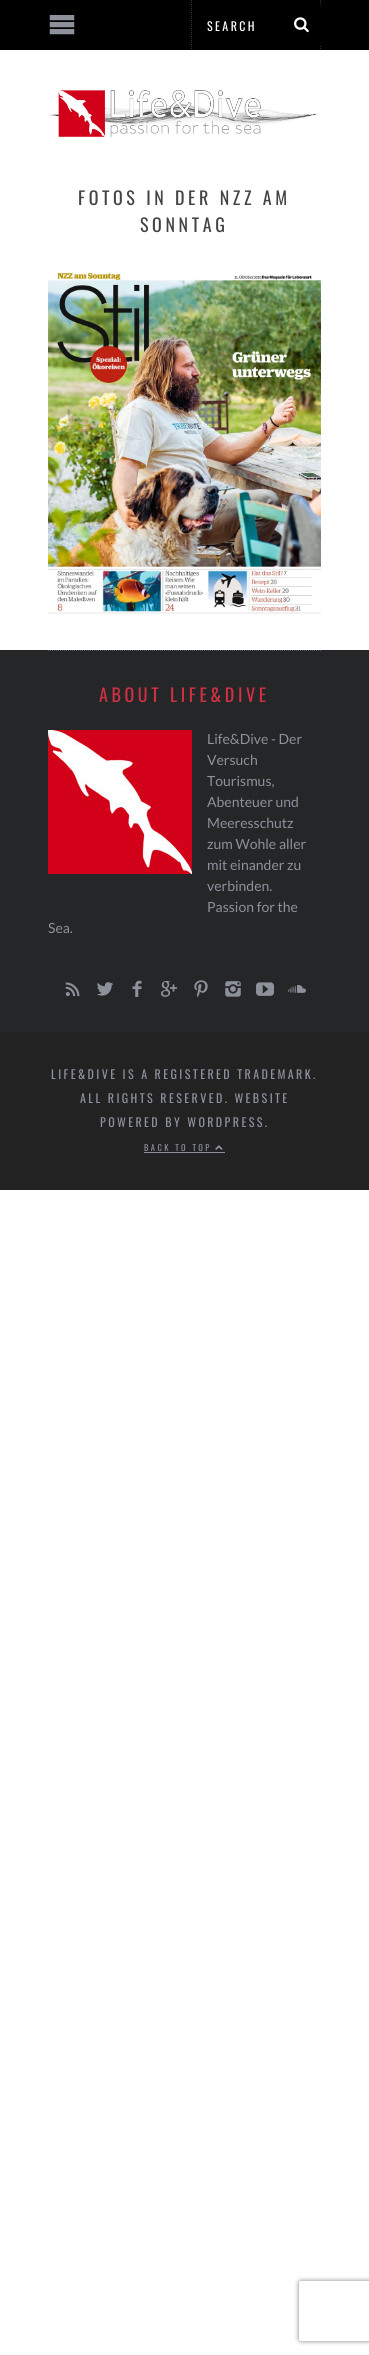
import math
import cairo


def write_spaced(ctx, x, y, s, letter, word):
	ctx.move_to(x, y)
	for ch in s:
		ctx.show_text(ch)
		ctx.rel_move_to(letter + word * (ch == ' '), 0)

def round_path(ctx, x, y, w, h, r):
	ctx.new_sub_path()
	for i, (u, v) in enumerate([(x + w - r, y + h - r), (x + r, y + h - r), (x + r, y + r), (x + w - r, y + r)]):
		ctx.arc(u, v, r, i * math.pi / 2, (i + 1) * math.pi / 2)
	ctx.close_path()

def blur_box(ctx, x, y, w, h, r, blur, alpha):
	ctx.push_group_with_content(cairo.CONTENT_ALPHA)
	ctx.set_operator(cairo.OPERATOR_SOURCE)
	for i in range(15, -16, -2):
		e = blur * i / 6
		if min(w, h) + 2 * e > 0:
			ctx.set_source_rgba(0, 0, 0, alpha * math.erfc((i - 1) / 8.5) / 2)
			round_path(ctx, x - e, y - e, w + 2 * e, h + 2 * e, max(0, min(r + e + blur * .6, min(w, h) / 2 + e)))
			ctx.fill()
	ctx.mask(ctx.pop_group())

def paste(ctx, path, x, y, w, h):
	ctx.save()
	ctx.set_source_surface(cairo.ImageSurface.create_from_png(path), x, y)
	ctx.rectangle(x, y, w, h)
	ctx.fill()
	ctx.restore()

def draw(ctx):
	ctx.set_source_rgb(1, 1, 1)
	ctx.paint()
	ctx.set_source_rgb(0, 0, 0)
	ctx.rectangle(0, 0, 369, 50)
	ctx.fill()
	paste(ctx, 'media/1.png', 49, 15, 26, 20)
	ctx.new_path()
	ctx.move_to(320.5, 0)
	ctx.line_to(320.5, 50)
	ctx.set_source_rgb(0.2, 0.2, 0.2)
	ctx.set_line_width(1)
	ctx.set_dash([1, 1])
	ctx.stroke()
	ctx.new_path()
	ctx.move_to(191.5, 0)
	ctx.line_to(191.5, 50)
	ctx.stroke()
	ctx.select_font_face('Oswald')
	ctx.set_font_size(12)
	ctx.set_source_rgb(1, 1, 1)
	write_spaced(ctx, 207, 31, 'SEARCH', 2.4, 0)
	ctx.set_source_rgb(0, 0, 0)
	ctx.rectangle(320, 6, 1, 39)
	ctx.fill()
	paste(ctx, 'media/2.png', 294, 17, 15, 16)
	paste(ctx, 'media/3.png', 48, 90, 270, 47)
	ctx.set_font_size(18)
	ctx.set_source_rgb(0.267, 0.267, 0.267)
	write_spaced(ctx, 78, 205, 'FOTOS IN DER NZZ AM', 3.6, 0)
	write_spaced(ctx, 140, 232, 'SONNTAG', 3.6, 0)
	paste(ctx, 'media/4.png', 48, 271, 273, 343)
	ctx.set_source_rgb(0.141, 0.149, 0.157)
	ctx.rectangle(0, 650, 369, 382)
	ctx.fill()
	ctx.new_path()
	ctx.move_to(48, 650.5)
	ctx.line_to(321, 650.5)
	ctx.set_source_rgb(0.345, 0.357, 0.38)
	ctx.stroke()
	ctx.set_source_rgb(0.82, 0.188, 0.259)
	write_spaced(ctx, 99, 702, 'ABOUT LIFE&DIVE', 3.6, 0)
	paste(ctx, 'media/5.png', 48, 730, 144, 144)
	ctx.select_font_face('Lato')
	ctx.set_font_size(14)
	ctx.set_source_rgb(0.549, 0.569, 0.608)
	for x, y, s in [
		(207, 744, 'Life&Dive - Der'),
		(207, 765, 'Versuch'),
		(207, 786, 'Tourismus,'),
		(207, 807, 'Abenteuer und'),
		(207, 828, 'Meeresschutz'),
		(207, 849, 'zum Wohle aller'),
		(207, 870, 'mit einander zu'),
		(207, 891, 'verbinden.'),
		(207, 912, 'Passion for the'),
		(48, 933, 'Sea.'),
	]:
		ctx.move_to(x, y)
		ctx.show_text(s)
	paste(ctx, 'media/6.png', 65, 982, 15, 15)
	paste(ctx, 'media/7.png', 97, 982, 17, 14)
	paste(ctx, 'media/8.png', 132, 980, 10, 17)
	paste(ctx, 'media/9.png', 161, 981, 17, 16)
	paste(ctx, 'media/10.png', 194, 980, 14, 18)
	paste(ctx, 'media/11.png', 225, 981, 16, 16)
	paste(ctx, 'media/12.png', 256, 982, 18, 14)
	paste(ctx, 'media/13.png', 288, 984, 18, 9)
	ctx.set_source_rgb(0.133, 0.133, 0.133)
	ctx.rectangle(0, 1032, 369, 158)
	ctx.fill()
	ctx.select_font_face('Oswald')
	ctx.set_font_size(12)
	ctx.set_source_rgb(0.549, 0.569, 0.608)
	for x, y, s in [
		(51, 1079, 'LIFE&DIVE IS A REGISTERED TRADEMARK.'),
		(80, 1103, 'ALL RIGHTS RESERVED. WEBSITE'),
		(100, 1127, 'POWERED BY WORDPRESS.'),
	]:
		write_spaced(ctx, x, y, s, 2.4, 0)
	ctx.set_font_size(8.5)
	write_spaced(ctx, 144, 1151, 'BACK TO TOP', 2.4, 0)
	ctx.rectangle(144, 1152, 81, 1)
	ctx.fill()
	paste(ctx, 'media/14.png', 215, 1145, 8, 5)
	ctx.save()
	ctx.set_fill_rule(cairo.FILL_RULE_EVEN_ODD)
	ctx.new_path()
	ctx.move_to(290, 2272)
	ctx.line_to(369, 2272)
	ctx.line_to(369, 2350)
	ctx.line_to(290, 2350)
	ctx.close_path()
	ctx.move_to(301, 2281)
	ctx.line_to(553, 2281)
	ctx.curve_to(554, 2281, 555, 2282, 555, 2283)
	ctx.line_to(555, 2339)
	ctx.curve_to(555, 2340, 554, 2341, 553, 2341)
	ctx.line_to(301, 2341)
	ctx.curve_to(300, 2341, 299, 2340, 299, 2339)
	ctx.line_to(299, 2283)
	ctx.curve_to(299, 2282, 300, 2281, 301, 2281)
	ctx.close_path()
	ctx.clip()
	ctx.set_source_rgb(0.502, 0.502, 0.502)
	blur_box(ctx, 299, 2281, 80, 60, 2, 2.5, 1)
	ctx.restore()


surface = cairo.ImageSurface(cairo.FORMAT_RGB24, 369, 2355)
ctx = cairo.Context(surface)
options = cairo.FontOptions()
options.set_hint_metrics(cairo.HINT_METRICS_OFF)
options.set_hint_style(cairo.HINT_STYLE_NONE)
ctx.set_font_options(options)
ctx.set_miter_limit(4)
draw(ctx)
surface.write_to_png('image.png')
